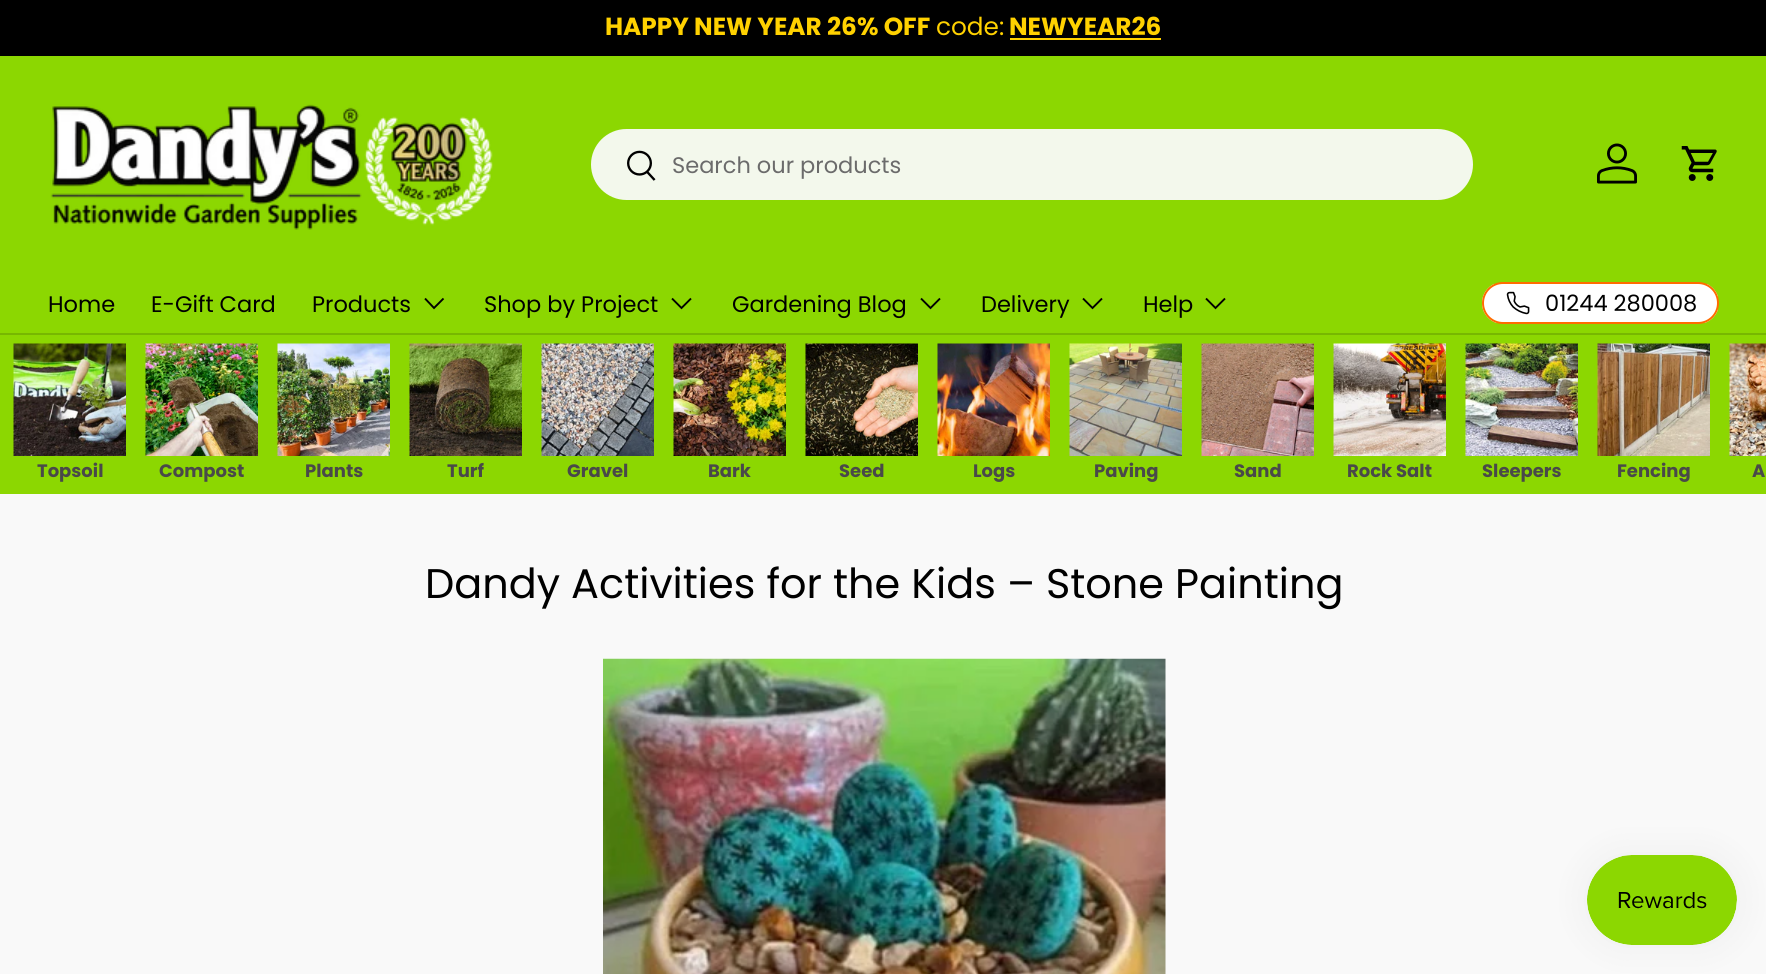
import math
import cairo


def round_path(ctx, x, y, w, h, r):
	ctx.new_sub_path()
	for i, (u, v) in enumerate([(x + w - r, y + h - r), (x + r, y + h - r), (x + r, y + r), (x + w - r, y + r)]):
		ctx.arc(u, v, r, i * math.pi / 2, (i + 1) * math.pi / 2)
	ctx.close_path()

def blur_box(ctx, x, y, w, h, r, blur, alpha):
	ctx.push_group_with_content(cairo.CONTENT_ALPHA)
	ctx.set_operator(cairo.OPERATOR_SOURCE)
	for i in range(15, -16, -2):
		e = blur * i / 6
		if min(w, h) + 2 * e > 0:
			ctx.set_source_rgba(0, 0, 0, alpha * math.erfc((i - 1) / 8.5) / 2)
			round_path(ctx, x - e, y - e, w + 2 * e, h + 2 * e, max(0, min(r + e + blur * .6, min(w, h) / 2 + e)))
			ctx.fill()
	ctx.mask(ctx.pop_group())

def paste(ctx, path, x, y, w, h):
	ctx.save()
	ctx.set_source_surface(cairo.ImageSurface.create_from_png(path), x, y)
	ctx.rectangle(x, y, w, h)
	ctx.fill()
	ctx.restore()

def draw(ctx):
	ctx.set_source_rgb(0.976, 0.976, 0.976)
	ctx.paint()
	ctx.set_source_rgb(0, 0, 0)
	ctx.rectangle(0, 0, 1766, 56)
	ctx.fill()
	ctx.select_font_face('Poppins', cairo.FONT_SLANT_NORMAL, cairo.FONT_WEIGHT_BOLD)
	ctx.set_font_size(24.75)
	ctx.set_source_rgb(1, 0.82, 0)
	ctx.move_to(605, 35)
	ctx.show_text('HAPPY NEW YEAR 26% OFF')
	ctx.select_font_face('Poppins')
	ctx.move_to(936, 35)
	ctx.show_text('code:')
	ctx.select_font_face('Poppins', cairo.FONT_SLANT_NORMAL, cairo.FONT_WEIGHT_BOLD)
	ctx.move_to(1009, 35)
	ctx.show_text('NEWYEAR26')
	ctx.rectangle(1010, 38, 151, 2)
	ctx.fill()
	ctx.set_source_rgb(0.549, 0.843, 0.004)
	ctx.rectangle(0, 56, 1766, 277)
	ctx.fill()
	ctx.set_source_rgb(0.467, 0.718, 0.004)
	ctx.rectangle(0, 333, 1766, 2)
	ctx.fill()
	paste(ctx, 'media/1.png', 50, 104, 443, 126)
	ctx.set_source_rgb(0.953, 0.969, 0.925)
	round_path(ctx, 591, 129, 882, 71, 35.5)
	ctx.fill()
	paste(ctx, 'media/2.png', 627, 150, 29, 31)
	ctx.select_font_face('Poppins')
	ctx.set_font_size(22.5)
	ctx.set_source_rgb(0.42, 0.42, 0.42)
	ctx.move_to(672, 173)
	ctx.show_text('Search our products')
	paste(ctx, 'media/3.png', 1597, 143, 40, 41)
	paste(ctx, 'media/4.png', 1681, 146, 36, 35)
	ctx.set_source_rgb(0, 0, 0)
	for x, y, s in [
		(48, 312, 'Home'),
		(151, 312, 'E-Gift Card'),
		(312, 312, 'Products'),
	]:
		ctx.move_to(x, y)
		ctx.show_text(s)
	ctx.new_path()
	ctx.move_to(443.5, 298.5)
	ctx.line_to(434, 308)
	ctx.line_to(425, 298.5)
	ctx.set_line_width(1.9)
	ctx.stroke()
	ctx.move_to(484, 312)
	ctx.show_text('Shop by Project')
	ctx.new_path()
	ctx.move_to(691, 298.5)
	ctx.line_to(681.5, 308)
	ctx.line_to(672, 298.5)
	ctx.stroke()
	ctx.move_to(732, 312)
	ctx.show_text('Gardening Blog')
	ctx.new_path()
	ctx.move_to(940, 298.5)
	ctx.line_to(930.5, 308)
	ctx.line_to(921, 298.5)
	ctx.stroke()
	ctx.move_to(981, 312)
	ctx.show_text('Delivery')
	ctx.new_path()
	ctx.move_to(1102, 298.5)
	ctx.line_to(1092.5, 308)
	ctx.line_to(1083, 298.5)
	ctx.stroke()
	ctx.move_to(1143, 312)
	ctx.show_text('Help')
	ctx.new_path()
	ctx.move_to(1225, 298.5)
	ctx.line_to(1215.5, 308)
	ctx.line_to(1206, 298.5)
	ctx.stroke()
	ctx.save()
	round_path(ctx, 1482, 282, 237, 42, 21)
	ctx.clip()
	gradient = cairo.LinearGradient(1031, 219, 1702, 387)
	gradient.add_color_stop_rgba(0.6, 0.882, 0.882, 0.882, 1)
	gradient.add_color_stop_rgba(0.6, 1, 1, 1, 1)
	gradient.add_color_stop_rgba(1, 1, 1, 1, 1)
	ctx.set_source(gradient)
	ctx.rectangle(1482, 284, 236, 39)
	ctx.fill()
	ctx.restore()
	round_path(ctx, 1483, 283, 235, 40, 20)
	ctx.set_source_rgb(1, 0.424, 0)
	ctx.set_line_width(2)
	ctx.stroke()
	paste(ctx, 'media/5.png', 1506, 291, 24, 24)
	ctx.set_source_rgb(0, 0, 0)
	ctx.move_to(1545, 311)
	ctx.show_text('01244 280008')
	ctx.set_source_rgb(0.549, 0.843, 0.004)
	ctx.rectangle(0, 335, 1766, 159)
	ctx.fill()
	paste(ctx, 'media/6.png', 13, 343, 113, 113)
	ctx.select_font_face('Poppins', cairo.FONT_SLANT_NORMAL, cairo.FONT_WEIGHT_BOLD)
	ctx.set_font_size(18)
	ctx.set_source_rgb(0.286, 0.286, 0.286)
	ctx.move_to(37, 477)
	ctx.show_text('Topsoil')
	paste(ctx, 'media/7.png', 145, 343, 113, 113)
	ctx.move_to(159, 477)
	ctx.show_text('Compost')
	paste(ctx, 'media/8.png', 277, 343, 113, 113)
	ctx.move_to(305, 477)
	ctx.show_text('Plants')
	paste(ctx, 'media/9.png', 409, 343, 113, 113)
	ctx.move_to(447, 477)
	ctx.show_text('Turf')
	paste(ctx, 'media/10.png', 541, 343, 113, 113)
	ctx.move_to(567, 477)
	ctx.show_text('Gravel')
	paste(ctx, 'media/11.png', 673, 343, 113, 113)
	ctx.move_to(708, 477)
	ctx.show_text('Bark')
	paste(ctx, 'media/12.png', 805, 343, 113, 113)
	ctx.move_to(839, 477)
	ctx.show_text('Seed')
	paste(ctx, 'media/13.png', 937, 343, 113, 113)
	ctx.move_to(973, 477)
	ctx.show_text('Logs')
	paste(ctx, 'media/14.png', 1069, 343, 113, 113)
	ctx.move_to(1094, 477)
	ctx.show_text('Paving')
	paste(ctx, 'media/15.png', 1201, 343, 113, 113)
	ctx.move_to(1234, 477)
	ctx.show_text('Sand')
	paste(ctx, 'media/16.png', 1333, 343, 113, 113)
	ctx.move_to(1347, 477)
	ctx.show_text('Rock Salt')
	paste(ctx, 'media/17.png', 1465, 343, 113, 113)
	ctx.move_to(1482, 477)
	ctx.show_text('Sleepers')
	paste(ctx, 'media/18.png', 1597, 343, 113, 113)
	ctx.move_to(1617, 477)
	ctx.show_text('Fencing')
	paste(ctx, 'media/19.png', 1729, 343, 37, 113)
	ctx.move_to(1752, 477)
	ctx.show_text('A')
	ctx.select_font_face('Poppins')
	ctx.set_font_size(41.4)
	ctx.set_source_rgb(0, 0, 0)
	ctx.move_to(425, 598)
	ctx.show_text('Dandy Activities for the Kids – Stone Painting')
	paste(ctx, 'media/20.png', 603, 658, 563, 316)
	ctx.set_source_rgb(0, 0, 0)
	blur_box(ctx, 1587, 855, 150, 90, 45, 19, 0.05)
	paste(ctx, 'media/21.png', 1587, 855, 150, 90)


surface = cairo.ImageSurface(cairo.FORMAT_RGB24, 1766, 974)
ctx = cairo.Context(surface)
options = cairo.FontOptions()
options.set_hint_metrics(cairo.HINT_METRICS_OFF)
options.set_hint_style(cairo.HINT_STYLE_NONE)
ctx.set_font_options(options)
ctx.set_miter_limit(4)
draw(ctx)
surface.write_to_png('image.png')
